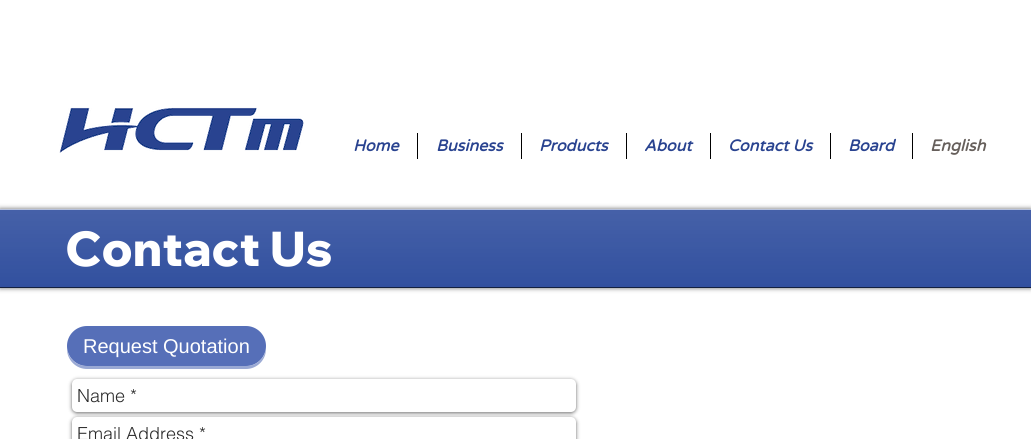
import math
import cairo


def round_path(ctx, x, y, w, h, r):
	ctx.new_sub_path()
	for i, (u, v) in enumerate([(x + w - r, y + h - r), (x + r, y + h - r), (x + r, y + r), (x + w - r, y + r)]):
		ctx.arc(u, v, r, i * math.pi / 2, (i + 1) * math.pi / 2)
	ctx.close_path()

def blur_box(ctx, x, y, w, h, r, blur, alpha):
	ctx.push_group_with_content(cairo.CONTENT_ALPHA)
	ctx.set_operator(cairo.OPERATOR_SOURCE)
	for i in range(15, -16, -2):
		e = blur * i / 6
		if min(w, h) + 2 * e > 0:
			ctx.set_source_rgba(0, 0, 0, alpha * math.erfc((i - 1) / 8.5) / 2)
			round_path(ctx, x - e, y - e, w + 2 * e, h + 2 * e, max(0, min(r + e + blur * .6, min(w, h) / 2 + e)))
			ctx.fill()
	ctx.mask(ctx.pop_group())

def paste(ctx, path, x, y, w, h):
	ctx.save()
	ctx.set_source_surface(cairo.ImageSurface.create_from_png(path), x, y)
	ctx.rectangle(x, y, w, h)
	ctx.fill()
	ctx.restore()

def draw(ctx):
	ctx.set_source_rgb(1, 1, 1)
	ctx.paint()
	paste(ctx, 'media/1.png', 59, 107, 245, 46)
	ctx.select_font_face('Varela Round', cairo.FONT_SLANT_ITALIC, cairo.FONT_WEIGHT_BOLD)
	ctx.set_font_size(16)
	ctx.set_source_rgb(0.161, 0.263, 0.565)
	ctx.move_to(353, 151)
	ctx.show_text('Home')
	ctx.set_source_rgb(0, 0, 0)
	ctx.rectangle(417, 133, 1, 26)
	ctx.fill()
	ctx.set_source_rgb(0.161, 0.263, 0.565)
	ctx.move_to(436, 151)
	ctx.show_text('Business')
	ctx.set_source_rgb(0, 0, 0)
	ctx.rectangle(521, 133, 1, 26)
	ctx.fill()
	ctx.set_source_rgb(0.161, 0.263, 0.565)
	ctx.move_to(539, 151)
	ctx.show_text('Products')
	ctx.set_source_rgb(0, 0, 0)
	ctx.rectangle(626, 133, 1, 26)
	ctx.fill()
	ctx.set_source_rgb(0.161, 0.263, 0.565)
	ctx.move_to(644, 151)
	ctx.show_text('About')
	ctx.set_source_rgb(0, 0, 0)
	ctx.rectangle(710, 133, 1, 26)
	ctx.fill()
	ctx.set_source_rgb(0.161, 0.263, 0.565)
	ctx.move_to(728, 151)
	ctx.show_text('Contact Us')
	ctx.set_source_rgb(0, 0, 0)
	ctx.rectangle(830, 133, 1, 26)
	ctx.fill()
	ctx.set_source_rgb(0.161, 0.263, 0.565)
	ctx.move_to(848, 151)
	ctx.show_text('Board')
	ctx.set_source_rgb(0, 0, 0)
	ctx.rectangle(912, 133, 1, 26)
	ctx.fill()
	ctx.set_source_rgb(0.4, 0.373, 0.357)
	ctx.move_to(930, 151)
	ctx.show_text('English')
	ctx.set_source_rgb(0, 0, 0)
	blur_box(ctx, 0, 209, 1031, 79, 0, 2.5, 0.6)
	ctx.set_source_rgb(0.02, 0.165, 0.541)
	ctx.rectangle(0, 210, 1031, 77)
	ctx.fill()
	paste(ctx, 'media/2.png', 0, 210, 1031, 77)
	ctx.set_source_rgb(0.078, 0.125, 0.251)
	ctx.rectangle(0, 287, 1031, 1)
	ctx.fill()
	ctx.set_source_rgb(0.71, 0.753, 0.863)
	ctx.rectangle(0, 209, 1031, 1)
	ctx.fill()
	ctx.select_font_face('Wix Madefor Display ExtraBold')
	ctx.set_font_size(48)
	ctx.set_source_rgb(1, 1, 1)
	ctx.move_to(65, 266)
	ctx.show_text('Contact Us')
	ctx.set_source_rgb(0.604, 0.663, 0.831)
	ctx.new_path()
	ctx.move_to(67, 348)
	ctx.line_to(67, 349)
	ctx.curve_to(67, 360, 76, 369, 87, 369)
	ctx.line_to(246, 369)
	ctx.curve_to(257, 369, 266, 360, 266, 349)
	ctx.line_to(266, 348)
	ctx.curve_to(265, 358, 257, 366, 246, 366)
	ctx.line_to(87, 366)
	ctx.curve_to(76, 366, 68, 358, 67, 348)
	ctx.close_path()
	ctx.fill()
	ctx.set_source_rgb(0.337, 0.435, 0.722)
	round_path(ctx, 67, 326, 199, 40, 20)
	ctx.fill()
	ctx.select_font_face('Liberation Sans')
	ctx.set_font_size(20)
	ctx.set_source_rgb(1, 1, 1)
	ctx.move_to(83, 353)
	ctx.show_text('Request Quotation')
	ctx.set_source_rgb(0, 0, 0)
	blur_box(ctx, 72, 380, 504, 33, 5, 2, 0.6)
	ctx.set_source_rgb(1, 1, 1)
	round_path(ctx, 72, 379, 504, 33, 5)
	ctx.fill()
	ctx.select_font_face('helvetica Light')
	ctx.set_font_size(18)
	ctx.set_source_rgb(0.165, 0.165, 0.165)
	ctx.move_to(77, 402)
	ctx.show_text('Name *')
	ctx.set_source_rgb(0, 0, 0)
	blur_box(ctx, 72, 418, 504, 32, 5, 2, 0.6)
	ctx.set_source_rgb(1, 1, 1)
	round_path(ctx, 72, 417, 504, 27, 5)
	ctx.fill()
	ctx.set_source_rgb(0.165, 0.165, 0.165)
	ctx.move_to(77, 440)
	ctx.show_text('Email Address *')


surface = cairo.ImageSurface(cairo.FORMAT_RGB24, 1031, 439)
ctx = cairo.Context(surface)
options = cairo.FontOptions()
options.set_hint_metrics(cairo.HINT_METRICS_OFF)
options.set_hint_style(cairo.HINT_STYLE_NONE)
ctx.set_font_options(options)
ctx.set_miter_limit(4)
draw(ctx)
surface.write_to_png('image.png')
